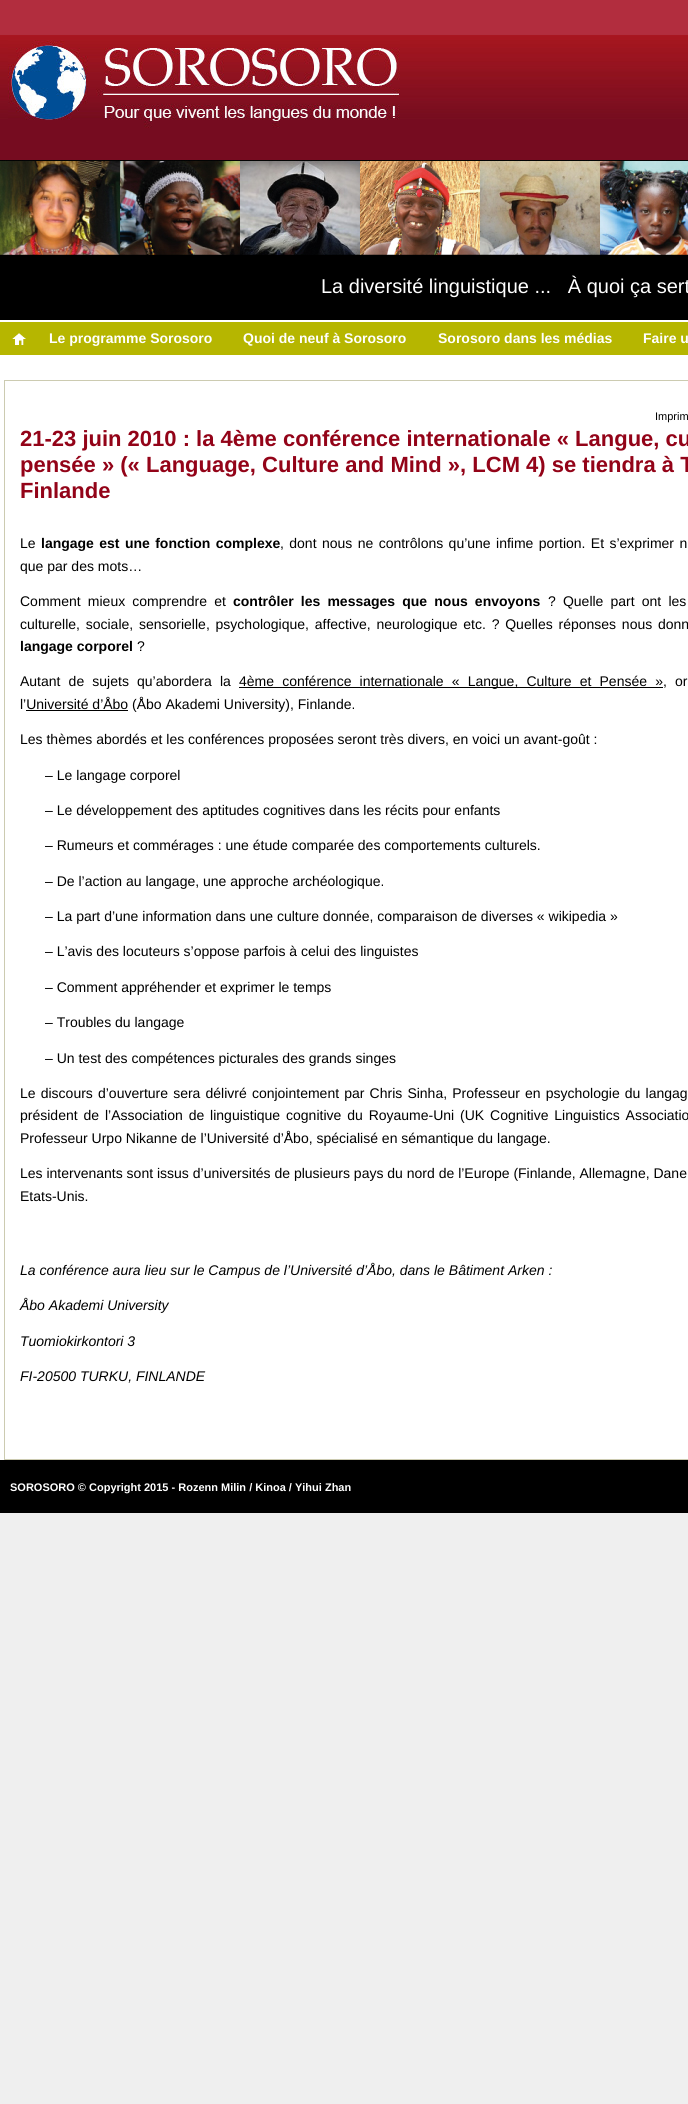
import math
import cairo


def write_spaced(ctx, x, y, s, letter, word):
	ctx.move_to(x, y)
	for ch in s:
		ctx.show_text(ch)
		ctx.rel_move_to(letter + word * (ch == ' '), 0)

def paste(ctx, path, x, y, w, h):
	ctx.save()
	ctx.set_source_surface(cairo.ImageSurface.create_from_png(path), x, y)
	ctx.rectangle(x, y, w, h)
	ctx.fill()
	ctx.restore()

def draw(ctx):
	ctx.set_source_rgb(0.937, 0.937, 0.937)
	ctx.paint()
	ctx.set_source_rgb(1, 1, 1)
	ctx.rectangle(0, 320, 688, 1140)
	ctx.fill()
	paste(ctx, 'media/1.png', 0, 0, 688, 160)
	paste(ctx, 'media/2.png', 8, 40, 392, 88)
	ctx.set_source_rgb(0, 0, 0)
	ctx.rectangle(0, 255, 688, 65)
	ctx.fill()
	paste(ctx, 'media/3.png', 0, 160, 688, 95)
	ctx.select_font_face('Liberation Sans')
	ctx.set_font_size(20)
	ctx.set_source_rgb(1, 1, 1)
	ctx.move_to(321, 293)
	ctx.show_text('La diversité linguistique ...   À quoi ça sert')
	ctx.set_source_rgb(0.714, 0.714, 0)
	ctx.rectangle(0, 322, 688, 33)
	ctx.fill()
	paste(ctx, 'media/4.png', 12, 333, 14, 12)
	ctx.select_font_face('Liberation Sans', cairo.FONT_SLANT_NORMAL, cairo.FONT_WEIGHT_BOLD)
	ctx.set_font_size(14)
	ctx.set_source_rgb(1, 1, 1)
	for x, y, s in [
		(49, 343, 'Le programme Sorosoro'),
		(243, 343, 'Quoi de neuf à Sorosoro'),
		(438, 343, 'Sorosoro dans les médias'),
		(643, 343, 'Faire u'),
	]:
		ctx.move_to(x, y)
		ctx.show_text(s)
	ctx.rectangle(4.5, 380.5, 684, 1079)
	ctx.set_source_rgb(0.8, 0.796, 0.694)
	ctx.set_line_width(1)
	ctx.stroke()
	ctx.select_font_face('Liberation Sans')
	ctx.set_font_size(11)
	ctx.set_source_rgb(0, 0, 0)
	ctx.move_to(655, 420)
	ctx.show_text('Imprim')
	ctx.select_font_face('Liberation Sans', cairo.FONT_SLANT_NORMAL, cairo.FONT_WEIGHT_BOLD)
	ctx.set_font_size(22)
	ctx.set_source_rgb(0.576, 0.012, 0.094)
	for x, y, s in [
		(20, 446, '21-23 juin 2010 : la 4ème conférence internationale « Langue, cu'),
		(20, 472, 'pensée » (« Language, Culture and Mind », LCM 4) se tiendra à T'),
		(20, 498, 'Finlande'),
	]:
		ctx.move_to(x, y)
		ctx.show_text(s)
	ctx.select_font_face('Liberation Sans')
	ctx.set_font_size(14)
	ctx.set_source_rgb(0, 0, 0)
	ctx.move_to(20, 548)
	ctx.show_text('Le')
	ctx.select_font_face('Liberation Sans', cairo.FONT_SLANT_NORMAL, cairo.FONT_WEIGHT_BOLD)
	write_spaced(ctx, 41, 548, 'langage est une fonction complexe', 0, 1.5)
	ctx.select_font_face('Liberation Sans')
	write_spaced(ctx, 280, 548, ', dont nous ne contrôlons qu’une infime portion. Et s’exprimer n', 0, 1.5)
	ctx.move_to(20, 571)
	ctx.show_text('que par des mots…')
	write_spaced(ctx, 20, 606, 'Comment mieux comprendre et', 0, 3.25)
	ctx.select_font_face('Liberation Sans', cairo.FONT_SLANT_NORMAL, cairo.FONT_WEIGHT_BOLD)
	write_spaced(ctx, 233, 606, 'contrôler les messages que nous envoyons', 0, 3.25)
	ctx.select_font_face('Liberation Sans')
	write_spaced(ctx, 548, 606, '? Quelle part ont les', 0, 3.25)
	write_spaced(ctx, 20, 629, 'culturelle, sociale, sensorielle, psychologique, affective, neurologique etc. ? Quelles réponses nous donn', 0, 1.9)
	ctx.select_font_face('Liberation Sans', cairo.FONT_SLANT_NORMAL, cairo.FONT_WEIGHT_BOLD)
	ctx.move_to(20, 651)
	ctx.show_text('langage corporel')
	ctx.select_font_face('Liberation Sans')
	ctx.move_to(137, 651)
	ctx.show_text('?')
	write_spaced(ctx, 20, 686, 'Autant de sujets qu’abordera la', 0, 4.25)
	ctx.rectangle(239, 687, 424, 1)
	ctx.fill()
	write_spaced(ctx, 239, 686, '4ème conférence internationale « Langue, Culture et Pensée », or', 0, 4.25)
	ctx.move_to(20, 709)
	ctx.show_text('l’Université d’Åbo (Åbo Akademi University), Finlande.')
	ctx.rectangle(26, 710, 102, 1)
	ctx.fill()
	for x, y, s in [
		(20, 744, 'Les thèmes abordés et les conférences proposées seront très divers, en voici un avant-goût :'),
		(45, 780, '– Le langage corporel'),
		(45, 815, '– Le développement des aptitudes cognitives dans les récits pour enfants'),
		(45, 850, '– Rumeurs et commérages : une étude comparée des comportements culturels.'),
		(45, 886, '– De l’action au langage, une approche archéologique.'),
		(45, 921, '– La part d’une information dans une culture donnée, comparaison de diverses « wikipedia »'),
		(45, 956, '– L’avis des locuteurs s’oppose parfois à celui des linguistes'),
		(45, 992, '– Comment appréhender et exprimer le temps'),
		(45, 1027, '– Troubles du langage'),
		(45, 1063, '– Un test des compétences picturales des grands singes'),
	]:
		ctx.move_to(x, y)
		ctx.show_text(s)
	write_spaced(ctx, 20, 1098, 'Le discours d’ouverture sera délivré conjointement par Chris Sinha, Professeur en psychologie du langag', 0, 1.25)
	write_spaced(ctx, 20, 1120, 'président de l’Association de linguistique cognitive du Royaume-Uni (UK Cognitive Linguistics Associatio', 0, 2)
	for x, y, s in [
		(20, 1143, 'Professeur Urpo Nikanne de l’Université d’Åbo, spécialisé en sémantique du langage.'),
		(20, 1178, 'Les intervenants sont issus d’universités de plusieurs pays du nord de l’Europe (Finlande, Allemagne, Dane'),
		(20, 1201, 'Etats-Unis.'),
	]:
		ctx.move_to(x, y)
		ctx.show_text(s)
	ctx.select_font_face('Liberation Sans', cairo.FONT_SLANT_ITALIC)
	for x, y, s in [
		(20, 1275, 'La conférence aura lieu sur le Campus de l’Université d’Åbo, dans le Bâtiment Arken :'),
		(20, 1310, 'Åbo Akademi University'),
		(20, 1346, 'Tuomiokirkontori 3'),
		(20, 1381, 'FI-20500 TURKU, FINLANDE'),
	]:
		ctx.move_to(x, y)
		ctx.show_text(s)
	ctx.rectangle(0, 1460, 688, 53)
	ctx.fill()
	ctx.select_font_face('Liberation Sans', cairo.FONT_SLANT_NORMAL, cairo.FONT_WEIGHT_BOLD)
	ctx.set_font_size(11)
	ctx.set_source_rgb(1, 1, 1)
	ctx.move_to(10, 1491)
	ctx.show_text('SOROSORO © Copyright 2015 - Rozenn Milin / Kinoa / Yihui Zhan')


surface = cairo.ImageSurface(cairo.FORMAT_RGB24, 688, 2104)
ctx = cairo.Context(surface)
options = cairo.FontOptions()
options.set_hint_metrics(cairo.HINT_METRICS_OFF)
options.set_hint_style(cairo.HINT_STYLE_NONE)
ctx.set_font_options(options)
ctx.set_miter_limit(4)
draw(ctx)
surface.write_to_png('image.png')
